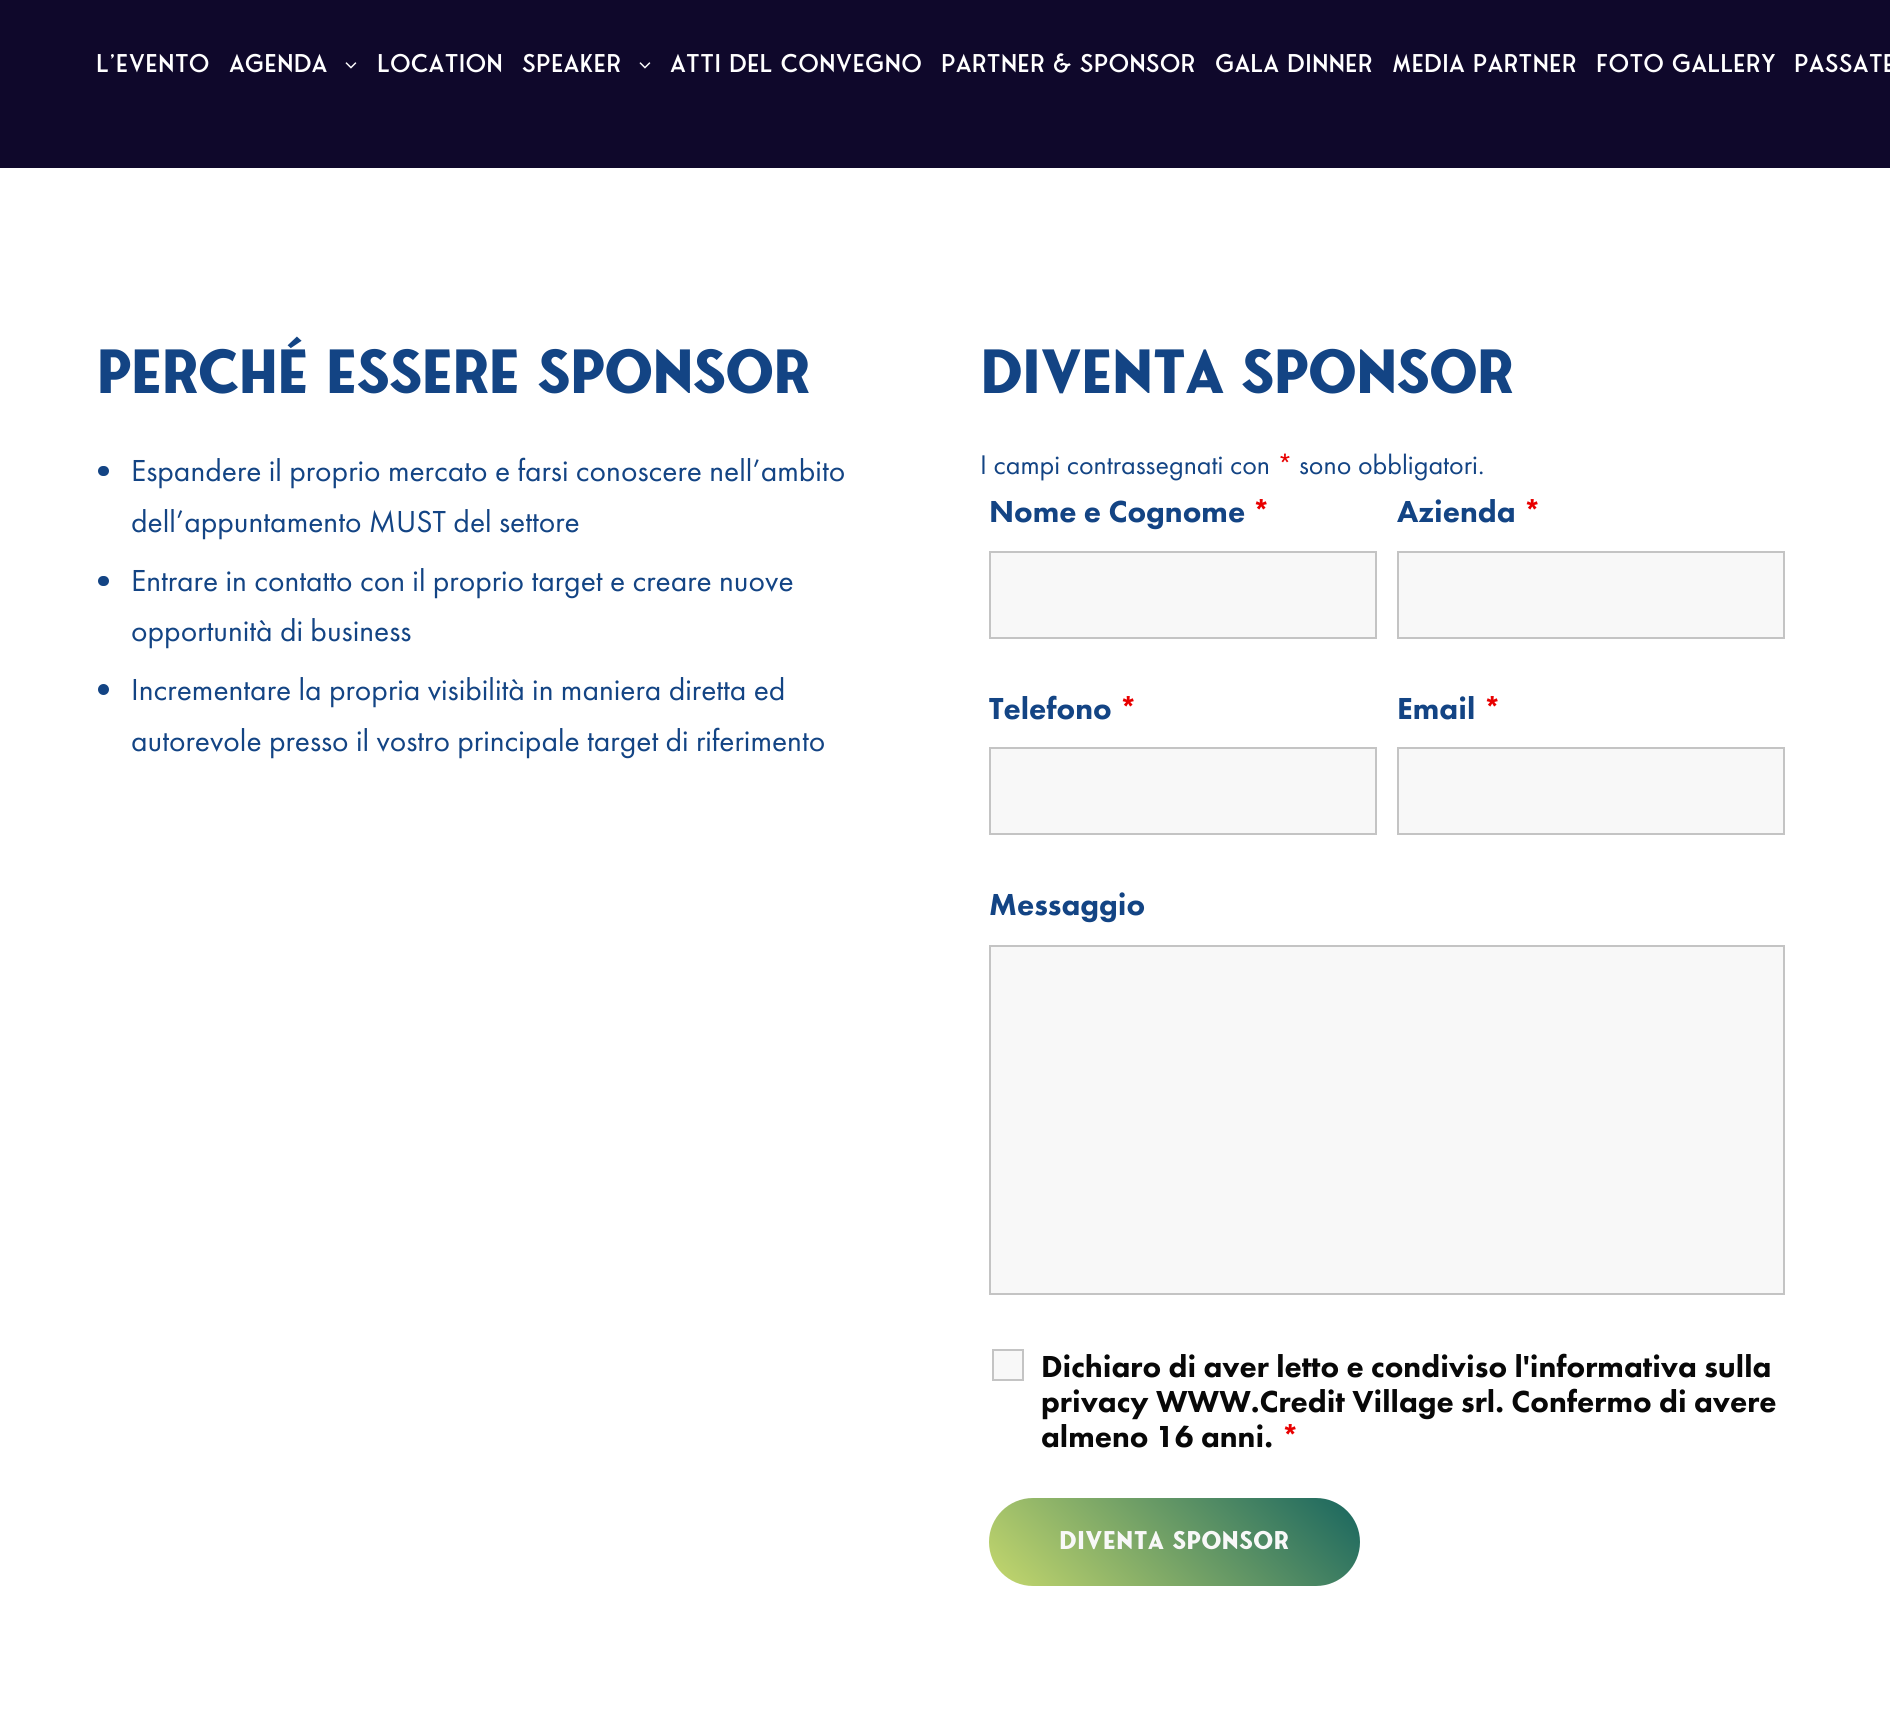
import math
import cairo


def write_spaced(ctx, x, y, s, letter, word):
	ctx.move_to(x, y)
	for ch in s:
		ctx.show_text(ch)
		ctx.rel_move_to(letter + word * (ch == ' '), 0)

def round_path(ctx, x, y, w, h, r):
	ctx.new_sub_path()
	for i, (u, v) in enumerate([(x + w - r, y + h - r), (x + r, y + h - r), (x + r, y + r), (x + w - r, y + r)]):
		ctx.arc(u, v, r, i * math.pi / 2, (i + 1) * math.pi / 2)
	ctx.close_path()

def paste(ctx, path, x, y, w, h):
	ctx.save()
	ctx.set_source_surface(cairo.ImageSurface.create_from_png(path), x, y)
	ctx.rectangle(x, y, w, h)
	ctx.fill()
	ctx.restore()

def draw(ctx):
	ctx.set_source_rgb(1, 1, 1)
	ctx.paint()
	ctx.set_source_rgb(0.059, 0.035, 0.169)
	ctx.rectangle(0, 0, 1890, 168)
	ctx.fill()
	ctx.select_font_face('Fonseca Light')
	ctx.set_font_size(24.5)
	ctx.set_source_rgb(1, 1, 1)
	ctx.move_to(96, 72)
	ctx.show_text('L’EVENTO')
	ctx.move_to(229, 72)
	ctx.show_text('AGENDA')
	paste(ctx, 'media/1.png', 345, 62, 12, 7)
	ctx.move_to(377, 72)
	ctx.show_text('LOCATION')
	ctx.move_to(522, 72)
	ctx.show_text('SPEAKER')
	paste(ctx, 'media/1.png', 639, 62, 12, 7)
	for x, y, s in [
		(670, 72, 'ATTI DEL CONVEGNO'),
		(941, 72, 'PARTNER & SPONSOR'),
		(1215, 72, 'GALA DINNER'),
		(1392, 72, 'MEDIA PARTNER'),
		(1596, 72, 'FOTO GALLERY'),
		(1794, 72, 'PASSATE'),
	]:
		ctx.move_to(x, y)
		ctx.show_text(s)
	ctx.select_font_face('Fonseca', cairo.FONT_SLANT_NORMAL, cairo.FONT_WEIGHT_BOLD)
	ctx.set_font_size(59.5)
	ctx.set_source_rgb(0.075, 0.267, 0.518)
	write_spaced(ctx, 96, 393, 'PERCHÉ ESSERE SPONSOR', -1.75, 0)
	round_path(ctx, 98, 466, 11, 10, 5)
	ctx.fill()
	ctx.select_font_face('Futura PT')
	ctx.set_font_size(31.5)
	ctx.move_to(131, 481)
	ctx.show_text('Espandere il proprio mercato e farsi conoscere nell’ambito')
	ctx.move_to(131, 532)
	ctx.show_text('dell’appuntamento MUST del settore')
	round_path(ctx, 98, 576, 11, 10, 5)
	ctx.fill()
	ctx.move_to(131, 591)
	ctx.show_text('Entrare in contatto con il proprio target e creare nuove')
	ctx.move_to(131, 641)
	ctx.show_text('opportunità di business')
	ctx.new_path()
	ctx.arc(103.5, 689.5, 5.5, 0, 2 * math.pi)
	ctx.fill()
	ctx.move_to(131, 700)
	ctx.show_text('Incrementare la propria visibilità in maniera diretta ed')
	ctx.move_to(131, 751)
	ctx.show_text('autorevole presso il vostro principale target di riferimento')
	ctx.select_font_face('Fonseca', cairo.FONT_SLANT_NORMAL, cairo.FONT_WEIGHT_BOLD)
	ctx.set_font_size(59.5)
	write_spaced(ctx, 980, 393, 'DIVENTA SPONSOR', -1.75, 0)
	ctx.select_font_face('Futura PT')
	ctx.set_font_size(28)
	ctx.move_to(980, 474)
	ctx.show_text('I campi contrassegnati con')
	ctx.set_source_rgb(0.91, 0, 0)
	ctx.move_to(1277, 474)
	ctx.show_text('*')
	ctx.set_source_rgb(0.075, 0.267, 0.518)
	ctx.move_to(1299, 474)
	ctx.show_text('sono obbligatori.')
	ctx.select_font_face('Futura PT Black')
	ctx.set_font_size(31.5)
	ctx.move_to(989, 522)
	ctx.show_text('Nome e Cognome')
	ctx.set_source_rgb(0.91, 0, 0)
	ctx.move_to(1252, 522)
	ctx.show_text('*')
	ctx.set_source_rgb(0.969, 0.969, 0.969)
	ctx.rectangle(990, 552, 386, 86)
	ctx.fill_preserve()
	ctx.set_source_rgb(0.769, 0.769, 0.769)
	ctx.stroke()
	ctx.set_source_rgb(0.075, 0.267, 0.518)
	ctx.move_to(1397, 522)
	ctx.show_text('Azienda')
	ctx.set_source_rgb(0.91, 0, 0)
	ctx.move_to(1523, 522)
	ctx.show_text('*')
	ctx.set_source_rgb(0.969, 0.969, 0.969)
	ctx.rectangle(1398, 552, 386, 86)
	ctx.fill_preserve()
	ctx.set_source_rgb(0.769, 0.769, 0.769)
	ctx.stroke()
	ctx.set_source_rgb(0.075, 0.267, 0.518)
	ctx.move_to(989, 719)
	ctx.show_text('Telefono')
	ctx.set_source_rgb(0.91, 0, 0)
	ctx.move_to(1119, 719)
	ctx.show_text('*')
	ctx.set_source_rgb(0.969, 0.969, 0.969)
	ctx.rectangle(990, 748, 386, 86)
	ctx.fill_preserve()
	ctx.set_source_rgb(0.769, 0.769, 0.769)
	ctx.stroke()
	ctx.set_source_rgb(0.075, 0.267, 0.518)
	ctx.move_to(1397, 719)
	ctx.show_text('Email')
	ctx.set_source_rgb(0.91, 0, 0)
	ctx.move_to(1483, 719)
	ctx.show_text('*')
	ctx.set_source_rgb(0.969, 0.969, 0.969)
	ctx.rectangle(1398, 748, 386, 86)
	ctx.fill_preserve()
	ctx.set_source_rgb(0.769, 0.769, 0.769)
	ctx.stroke()
	ctx.set_source_rgb(0.075, 0.267, 0.518)
	ctx.move_to(989, 915)
	ctx.show_text('Messaggio')
	ctx.set_source_rgb(0.969, 0.969, 0.969)
	ctx.rectangle(990, 946, 794, 348)
	ctx.fill_preserve()
	ctx.set_source_rgb(0.769, 0.769, 0.769)
	ctx.stroke()
	ctx.set_source_rgb(0.969, 0.969, 0.969)
	ctx.rectangle(993, 1350, 30, 30)
	ctx.fill_preserve()
	ctx.set_source_rgb(0.769, 0.769, 0.769)
	ctx.stroke()
	ctx.set_source_rgb(0.035, 0.035, 0.035)
	for x, y, s in [
		(1041, 1377, 'Dichiaro di aver letto e condiviso l\'informativa sulla'),
		(1041, 1412, 'privacy WWW.Credit Village srl. Confermo di avere'),
		(1041, 1447, 'almeno 16 anni.'),
	]:
		ctx.move_to(x, y)
		ctx.show_text(s)
	ctx.set_source_rgb(0.91, 0, 0)
	ctx.move_to(1281, 1447)
	ctx.show_text('*')
	gradient = cairo.LinearGradient(1289, 1427, 1060, 1656)
	gradient.add_color_stop_rgba(0, 0.094, 0.396, 0.373, 1)
	gradient.add_color_stop_rgba(1, 0.773, 0.847, 0.427, 1)
	ctx.set_source(gradient)
	round_path(ctx, 989, 1498, 371, 88, 44)
	ctx.fill()
	ctx.select_font_face('Fonseca', cairo.FONT_SLANT_NORMAL, cairo.FONT_WEIGHT_BOLD)
	ctx.set_font_size(24.5)
	ctx.set_source_rgb(0.969, 0.969, 0.969)
	ctx.move_to(1059, 1549)
	ctx.show_text('DIVENTA SPONSOR')


surface = cairo.ImageSurface(cairo.FORMAT_RGB24, 1890, 1731)
ctx = cairo.Context(surface)
options = cairo.FontOptions()
options.set_hint_metrics(cairo.HINT_METRICS_OFF)
options.set_hint_style(cairo.HINT_STYLE_NONE)
ctx.set_font_options(options)
ctx.set_miter_limit(4)
draw(ctx)
surface.write_to_png('image.png')
